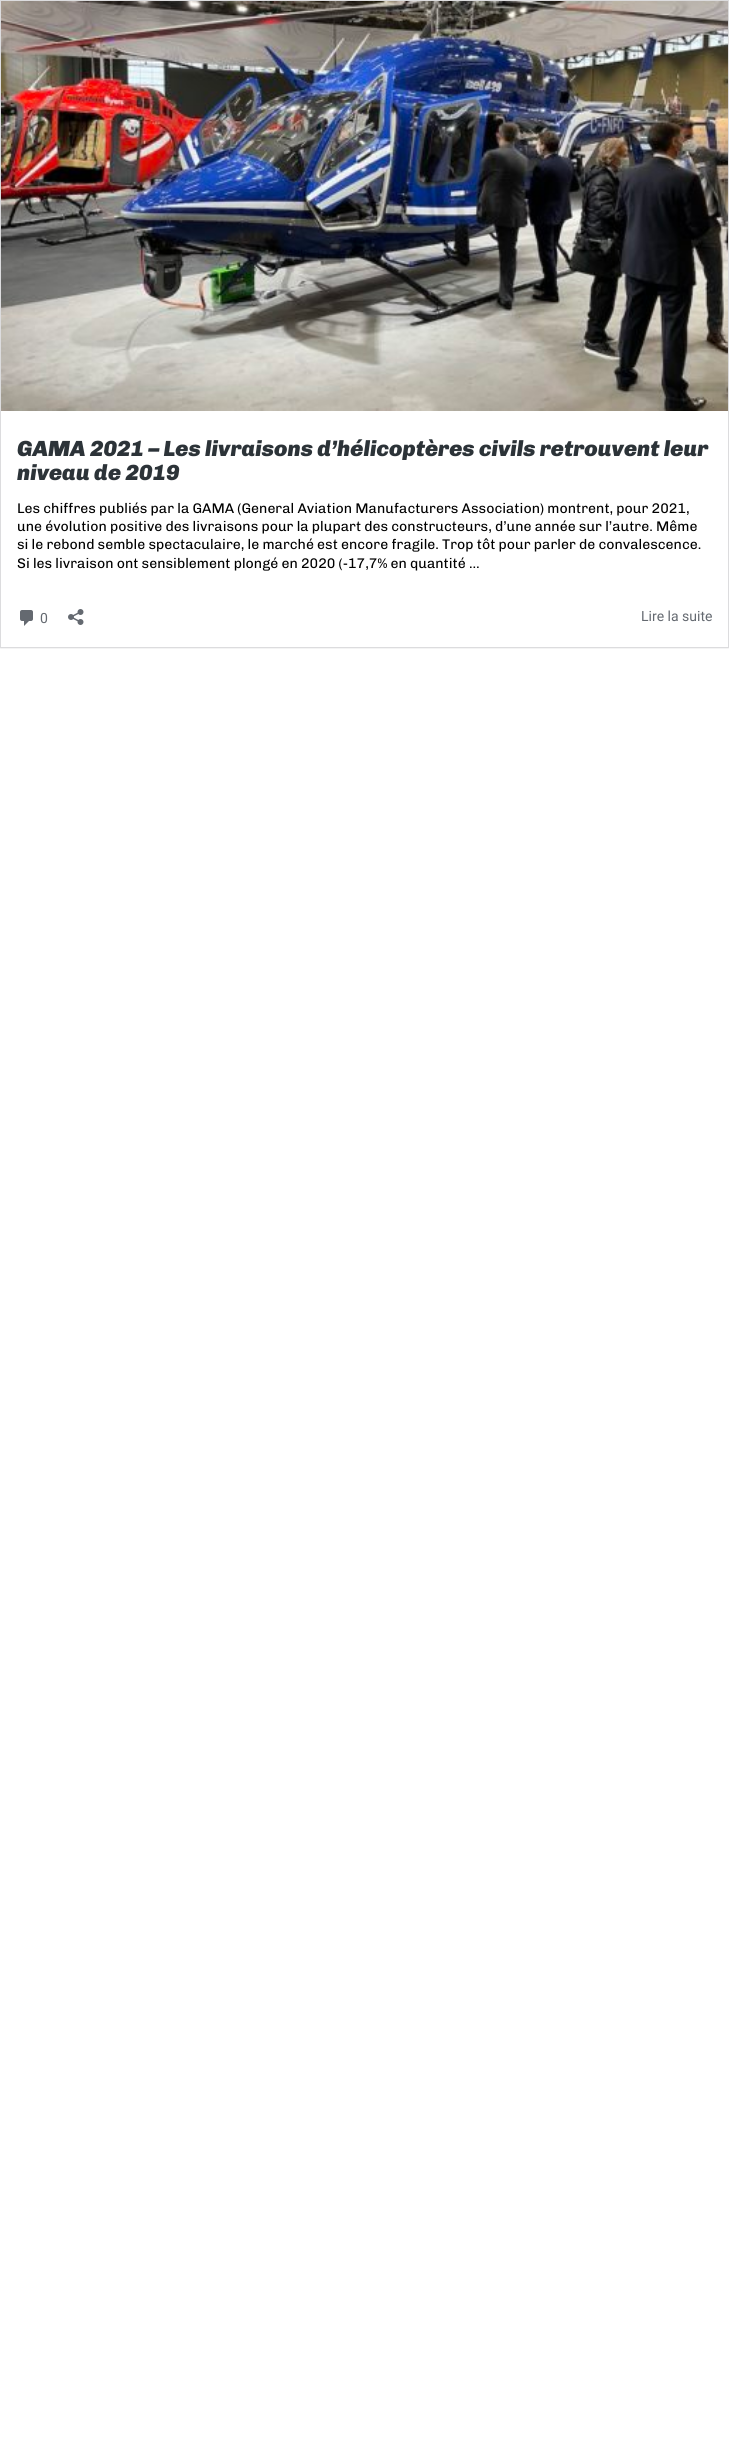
import math
import cairo


def round_path(ctx, x, y, w, h, r):
	ctx.new_sub_path()
	for i, (u, v) in enumerate([(x + w - r, y + h - r), (x + r, y + h - r), (x + r, y + r), (x + w - r, y + r)]):
		ctx.arc(u, v, r, i * math.pi / 2, (i + 1) * math.pi / 2)
	ctx.close_path()

def blur_box(ctx, x, y, w, h, r, blur, alpha):
	ctx.push_group_with_content(cairo.CONTENT_ALPHA)
	ctx.set_operator(cairo.OPERATOR_SOURCE)
	for i in range(15, -16, -2):
		e = blur * i / 6
		if min(w, h) + 2 * e > 0:
			ctx.set_source_rgba(0, 0, 0, alpha * math.erfc((i - 1) / 8.5) / 2)
			round_path(ctx, x - e, y - e, w + 2 * e, h + 2 * e, max(0, min(r + e + blur * .6, min(w, h) / 2 + e)))
			ctx.fill()
	ctx.mask(ctx.pop_group())

def paste(ctx, path, x, y, w, h):
	ctx.save()
	ctx.set_source_surface(cairo.ImageSurface.create_from_png(path), x, y)
	ctx.rectangle(x, y, w, h)
	ctx.fill()
	ctx.restore()

def draw(ctx):
	ctx.set_source_rgb(1, 1, 1)
	ctx.paint()
	ctx.save()
	ctx.rectangle(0, 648, 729, 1)
	ctx.clip()
	ctx.set_source_rgb(0, 0, 0)
	blur_box(ctx, 0, 1, 729, 648, 0, 0.5, 0.05)
	ctx.restore()
	ctx.rectangle(0.5, 0.5, 728, 647)
	ctx.set_source_rgb(0.863, 0.863, 0.871)
	ctx.set_line_width(1)
	ctx.stroke()
	paste(ctx, 'media/1.png', 1, 1, 727, 410)
	ctx.select_font_face('Chivo Medium', cairo.FONT_SLANT_ITALIC)
	ctx.set_font_size(22)
	ctx.set_source_rgb(0.173, 0.2, 0.22)
	ctx.move_to(17, 456)
	ctx.show_text('GAMA 2021 – Les livraisons d’hélicoptères civils retrouvent leur')
	ctx.move_to(17, 480)
	ctx.show_text('niveau de 2019')
	ctx.select_font_face('Chivo Medium')
	ctx.set_font_size(14)
	ctx.set_source_rgb(0, 0, 0)
	for x, y, s in [
		(17, 513, 'Les chiffres publiés par la GAMA (General Aviation Manufacturers Association) montrent, pour 2021,'),
		(17, 531, 'une évolution positive des livraisons pour la plupart des constructeurs, d’une année sur l’autre. Même'),
		(17, 549, 'si le rebond semble spectaculaire, le marché est encore fragile. Trop tôt pour parler de convalescence.'),
		(17, 568, 'Si les livraison ont sensiblement plongé en 2020 (-17,7% en quantité …'),
	]:
		ctx.move_to(x, y)
		ctx.show_text(s)
	paste(ctx, 'media/2.png', 20, 610, 13, 16)
	ctx.select_font_face('Roboto')
	ctx.set_source_rgb(0.392, 0.412, 0.439)
	ctx.move_to(40, 623)
	ctx.show_text('0')
	paste(ctx, 'media/3.png', 68, 609, 16, 16)
	ctx.move_to(641, 621)
	ctx.show_text('Lire la suite')


surface = cairo.ImageSurface(cairo.FORMAT_RGB24, 729, 2457)
ctx = cairo.Context(surface)
options = cairo.FontOptions()
options.set_hint_metrics(cairo.HINT_METRICS_OFF)
options.set_hint_style(cairo.HINT_STYLE_NONE)
ctx.set_font_options(options)
ctx.set_miter_limit(4)
draw(ctx)
surface.write_to_png('image.png')
